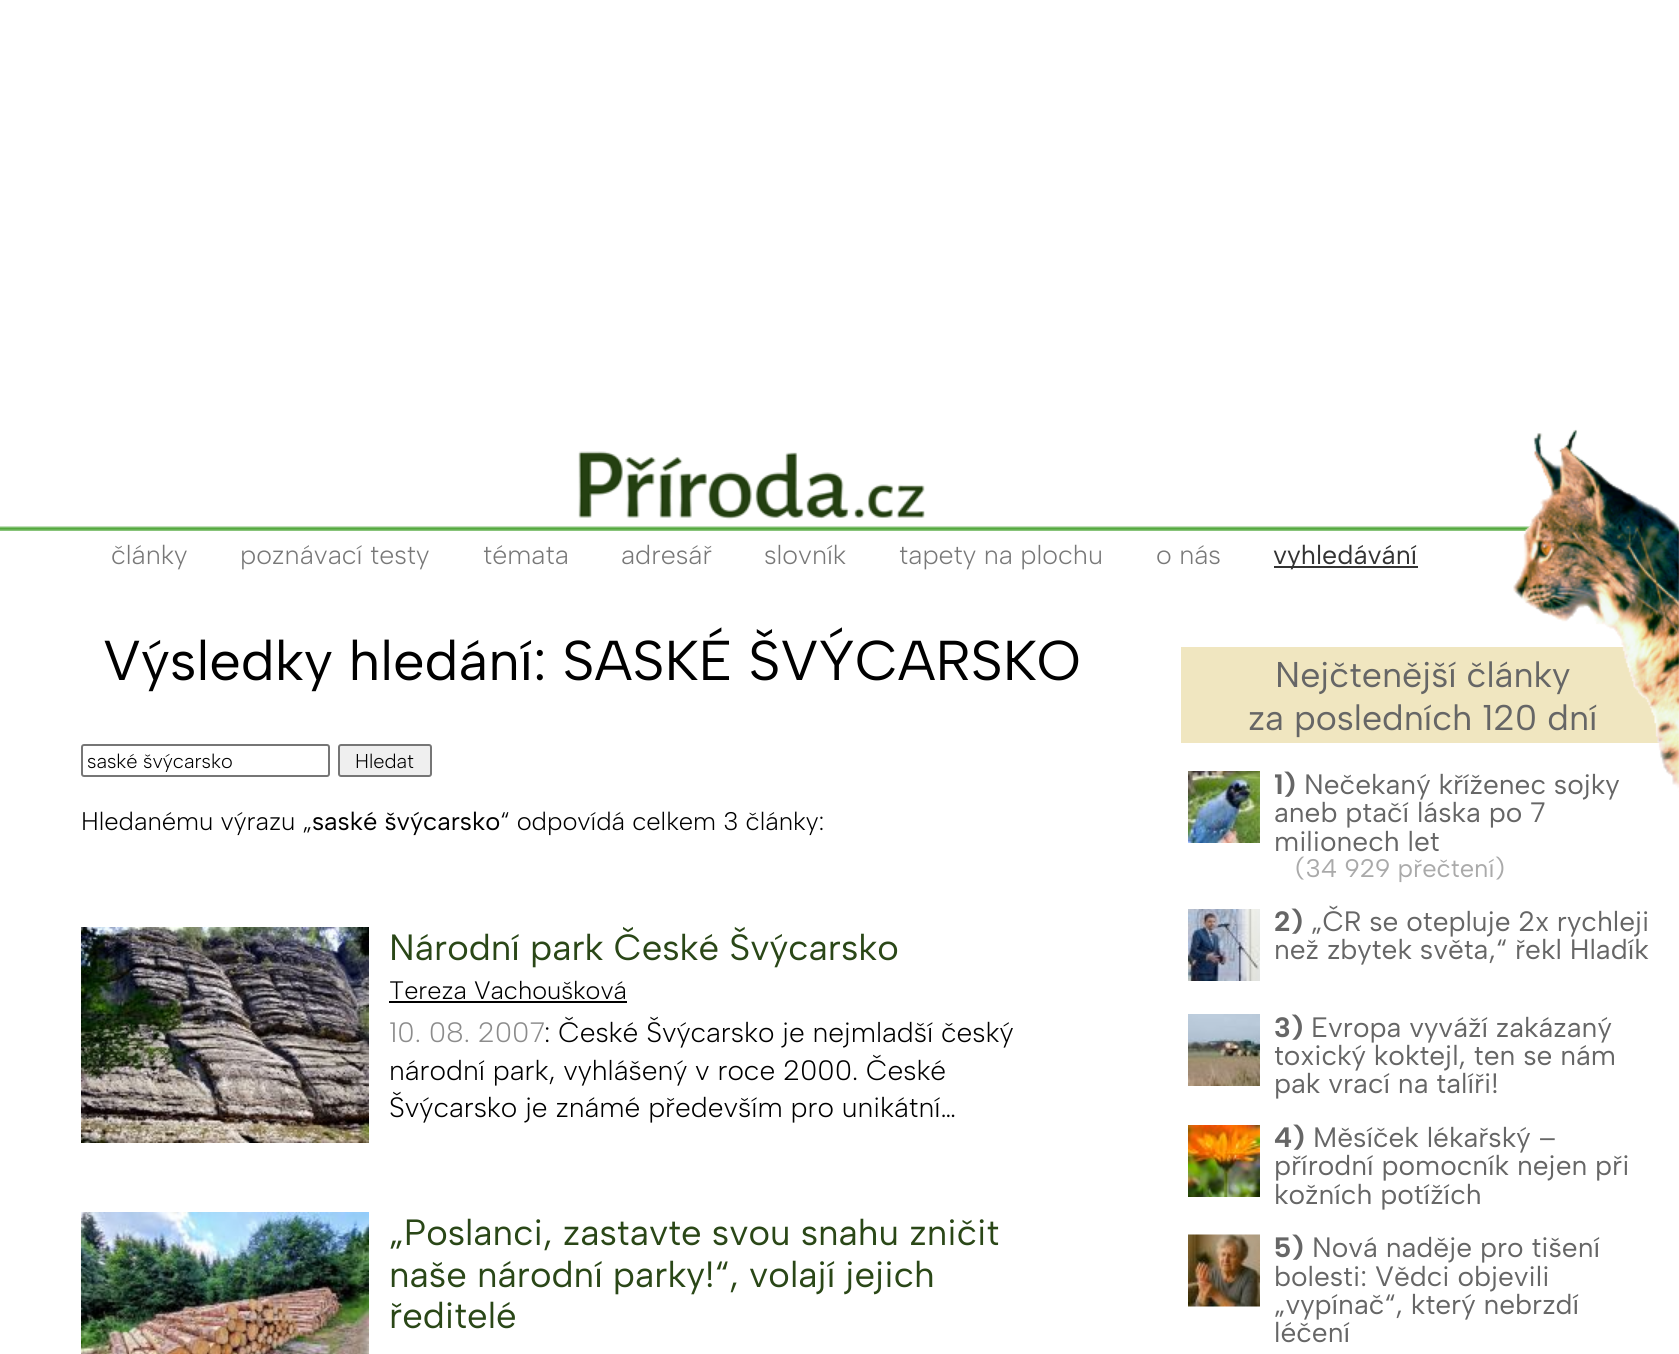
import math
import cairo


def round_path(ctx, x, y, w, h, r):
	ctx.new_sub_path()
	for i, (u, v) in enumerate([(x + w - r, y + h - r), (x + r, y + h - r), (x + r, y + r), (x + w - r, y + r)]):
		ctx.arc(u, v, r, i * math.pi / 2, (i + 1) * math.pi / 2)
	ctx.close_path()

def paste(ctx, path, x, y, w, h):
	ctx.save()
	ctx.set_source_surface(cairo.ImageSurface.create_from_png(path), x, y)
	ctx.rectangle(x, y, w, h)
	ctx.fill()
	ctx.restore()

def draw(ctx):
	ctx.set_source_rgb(1, 1, 1)
	ctx.paint()
	paste(ctx, 'media/1.png', 0, 526, 1531, 5)
	paste(ctx, 'media/2.png', 578, 451, 347, 69)
	ctx.set_source_rgb(0.941, 0.902, 0.753)
	ctx.rectangle(1181, 647, 479, 96)
	ctx.fill()
	ctx.select_font_face('Albert Sans')
	ctx.set_font_size(35.75)
	ctx.set_source_rgb(0.4, 0.4, 0.4)
	ctx.move_to(1275, 687)
	ctx.show_text('Nejčtenější články')
	ctx.move_to(1248, 730)
	ctx.show_text('za posledních 120 dní')
	ctx.set_font_size(28.05)
	ctx.move_to(1304, 794)
	ctx.show_text('Nečekaný kříženec sojky')
	paste(ctx, 'media/3.png', 1513, 429, 166, 363)
	ctx.select_font_face('Albert Sans Light')
	ctx.set_font_size(26.75)
	ctx.set_source_rgb(0.471, 0.471, 0.471)
	for x, y, s in [
		(111, 564, 'články'),
		(240, 564, 'poznávací testy'),
		(483, 564, 'témata'),
		(621, 564, 'adresář'),
		(764, 564, 'slovník'),
		(899, 564, 'tapety na plochu'),
		(1156, 564, 'o nás'),
	]:
		ctx.move_to(x, y)
		ctx.show_text(s)
	ctx.set_source_rgb(0.2, 0.2, 0.2)
	ctx.rectangle(1274, 566, 144, 2)
	ctx.fill()
	ctx.select_font_face('Albert Sans')
	ctx.move_to(1273, 564)
	ctx.show_text('vyhledávání')
	ctx.set_font_size(56.1)
	ctx.set_source_rgb(0, 0, 0)
	ctx.move_to(103, 680)
	ctx.show_text('Výsledky hledání: SASKÉ ŠVÝCARSKO')
	round_path(ctx, 82, 745, 247, 31, 2)
	ctx.set_source_rgb(0.463, 0.463, 0.463)
	ctx.stroke()
	ctx.select_font_face('Albert Sans Light')
	ctx.set_font_size(20)
	ctx.set_source_rgb(0, 0, 0)
	ctx.move_to(87, 768)
	ctx.show_text('saské švýcarsko')
	ctx.set_source_rgb(0.937, 0.937, 0.937)
	round_path(ctx, 339, 745, 92, 31, 2)
	ctx.fill_preserve()
	ctx.set_source_rgb(0.463, 0.463, 0.463)
	ctx.stroke()
	ctx.set_source_rgb(0, 0, 0)
	ctx.move_to(355, 768)
	ctx.show_text('Hledat')
	ctx.set_font_size(25.5)
	ctx.move_to(81, 830)
	ctx.show_text('Hledanému výrazu „')
	ctx.select_font_face('Albert Sans')
	ctx.move_to(312, 830)
	ctx.show_text('saské švýcarsko')
	ctx.select_font_face('Albert Sans Light')
	ctx.move_to(500, 830)
	ctx.show_text('“ odpovídá celkem 3 články:')
	paste(ctx, 'media/4.png', 81, 927, 288, 216)
	ctx.select_font_face('Albert Sans')
	ctx.set_font_size(36.5)
	ctx.set_source_rgb(0.165, 0.278, 0.09)
	ctx.move_to(389, 960)
	ctx.show_text('Národní park České Švýcarsko')
	ctx.select_font_face('Albert Sans Light')
	ctx.set_font_size(25.25)
	ctx.set_source_rgb(0, 0, 0)
	ctx.move_to(389, 999)
	ctx.show_text('Tereza Vachoušková')
	ctx.rectangle(389, 1001, 238, 2)
	ctx.fill()
	ctx.set_font_size(28.05)
	ctx.set_source_rgb(0.549, 0.549, 0.549)
	ctx.move_to(389, 1042)
	ctx.show_text('10. 08. 2007')
	ctx.set_source_rgb(0, 0, 0)
	for x, y, s in [
		(544, 1042, ': České Švýcarsko je nejmladší český'),
		(389, 1080, 'národní park, vyhlášený v roce 2000. České'),
		(389, 1117, 'Švýcarsko je známé především pro unikátní…'),
	]:
		ctx.move_to(x, y)
		ctx.show_text(s)
	paste(ctx, 'media/5.png', 81, 1212, 288, 142)
	ctx.select_font_face('Albert Sans')
	ctx.set_font_size(36.5)
	ctx.set_source_rgb(0.165, 0.278, 0.09)
	for x, y, s in [
		(389, 1245, '„Poslanci, zastavte svou snahu zničit'),
		(389, 1287, 'naše národní parky!“, volají jejich'),
		(389, 1328, 'ředitelé'),
	]:
		ctx.move_to(x, y)
		ctx.show_text(s)
	paste(ctx, 'media/6.png', 1188, 771, 72, 72)
	ctx.select_font_face('Albert Sans', cairo.FONT_SLANT_NORMAL, cairo.FONT_WEIGHT_BOLD)
	ctx.set_font_size(28.05)
	ctx.set_source_rgb(0.4, 0.4, 0.4)
	ctx.move_to(1274, 794)
	ctx.show_text('1)')
	ctx.select_font_face('Albert Sans')
	ctx.move_to(1274, 822)
	ctx.show_text('aneb ptačí láska po 7')
	ctx.move_to(1274, 851)
	ctx.show_text('milionech let')
	ctx.set_font_size(25.5)
	ctx.set_source_rgb(0.667, 0.667, 0.667)
	ctx.move_to(1295, 877)
	ctx.show_text('(34 929 přečtení)')
	paste(ctx, 'media/7.png', 1188, 909, 72, 72)
	ctx.select_font_face('Albert Sans', cairo.FONT_SLANT_NORMAL, cairo.FONT_WEIGHT_BOLD)
	ctx.set_font_size(28.05)
	ctx.set_source_rgb(0.4, 0.4, 0.4)
	ctx.move_to(1274, 931)
	ctx.show_text('2)')
	ctx.select_font_face('Albert Sans')
	ctx.move_to(1311, 931)
	ctx.show_text('„ČR se otepluje 2x rychleji')
	ctx.move_to(1274, 959)
	ctx.show_text('než zbytek světa,“ řekl Hladík')
	paste(ctx, 'media/8.png', 1188, 1014, 72, 72)
	ctx.select_font_face('Albert Sans', cairo.FONT_SLANT_NORMAL, cairo.FONT_WEIGHT_BOLD)
	ctx.move_to(1274, 1037)
	ctx.show_text('3)')
	ctx.select_font_face('Albert Sans')
	for x, y, s in [
		(1311, 1037, 'Evropa vyváží zakázaný'),
		(1274, 1065, 'toxický koktejl, ten se nám'),
		(1274, 1093, 'pak vrací na talíři!'),
	]:
		ctx.move_to(x, y)
		ctx.show_text(s)
	paste(ctx, 'media/9.png', 1188, 1125, 72, 72)
	ctx.select_font_face('Albert Sans', cairo.FONT_SLANT_NORMAL, cairo.FONT_WEIGHT_BOLD)
	ctx.move_to(1274, 1147)
	ctx.show_text('4)')
	ctx.select_font_face('Albert Sans')
	for x, y, s in [
		(1313, 1147, 'Měsíček lékařský –'),
		(1274, 1175, 'přírodní pomocník nejen při'),
		(1274, 1204, 'kožních potížích'),
	]:
		ctx.move_to(x, y)
		ctx.show_text(s)
	paste(ctx, 'media/10.png', 1188, 1234, 72, 73)
	ctx.select_font_face('Albert Sans', cairo.FONT_SLANT_NORMAL, cairo.FONT_WEIGHT_BOLD)
	ctx.move_to(1274, 1257)
	ctx.show_text('5)')
	ctx.select_font_face('Albert Sans')
	for x, y, s in [
		(1312, 1257, 'Nová naděje pro tišení'),
		(1274, 1286, 'bolesti: Vědci objevili'),
		(1274, 1314, '„vypínač“, který nebrzdí'),
		(1274, 1342, 'léčení'),
	]:
		ctx.move_to(x, y)
		ctx.show_text(s)


surface = cairo.ImageSurface(cairo.FORMAT_RGB24, 1679, 1354)
ctx = cairo.Context(surface)
options = cairo.FontOptions()
options.set_hint_metrics(cairo.HINT_METRICS_OFF)
options.set_hint_style(cairo.HINT_STYLE_NONE)
ctx.set_font_options(options)
ctx.set_miter_limit(4)
draw(ctx)
surface.write_to_png('image.png')
